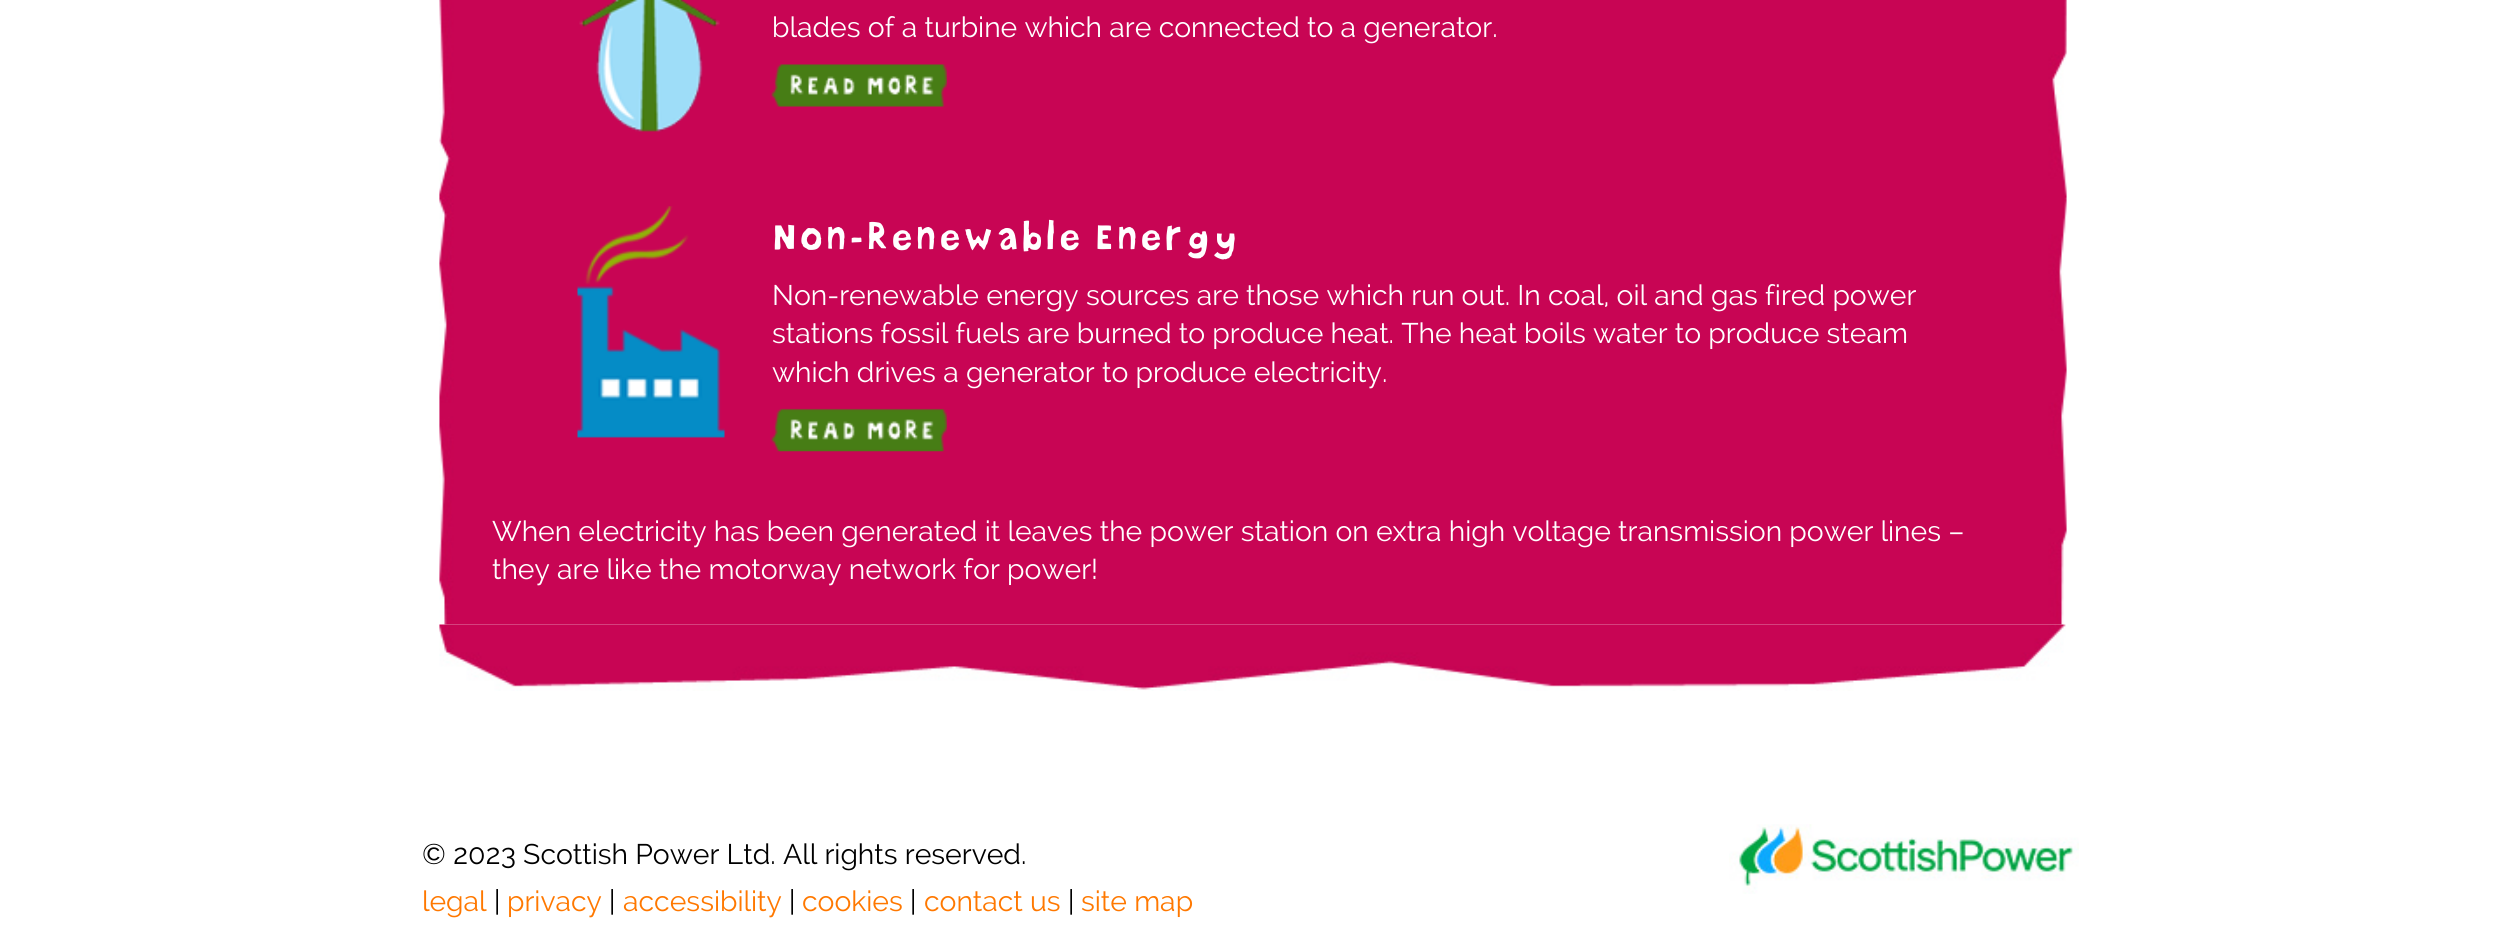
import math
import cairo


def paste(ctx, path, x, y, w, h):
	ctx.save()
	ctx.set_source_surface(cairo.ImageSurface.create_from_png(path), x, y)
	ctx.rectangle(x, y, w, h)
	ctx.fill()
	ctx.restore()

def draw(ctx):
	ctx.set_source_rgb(1, 1, 1)
	ctx.paint()
	paste(ctx, 'media/1.png', 439, 0, 1628, 625)
	paste(ctx, 'media/2.png', 579, 0, 141, 132)
	ctx.select_font_face('Raleway')
	ctx.set_font_size(28.35)
	ctx.set_source_rgb(1, 1, 1)
	ctx.move_to(772, 37)
	ctx.show_text('blades of a turbine which are connected to a generator.')
	paste(ctx, 'media/3.png', 771, 64, 176, 43)
	paste(ctx, 'media/4.png', 577, 206, 148, 232)
	ctx.select_font_face('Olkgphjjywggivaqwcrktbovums')
	ctx.set_font_size(37.75)
	ctx.move_to(772, 250)
	ctx.show_text('Non-Renewable Energy')
	ctx.select_font_face('Raleway')
	ctx.set_font_size(28.35)
	for x, y, s in [
		(772, 305, 'Non-renewable energy sources are those which run out. In coal, oil and gas fired power'),
		(772, 343, 'stations fossil fuels are burned to produce heat. The heat boils water to produce steam'),
		(772, 382, 'which drives a generator to produce electricity.'),
	]:
		ctx.move_to(x, y)
		ctx.show_text(s)
	paste(ctx, 'media/5.png', 771, 408, 176, 44)
	ctx.move_to(492, 541)
	ctx.show_text('When electricity has been generated it leaves the power station on extra high voltage transmission power lines –')
	ctx.move_to(492, 579)
	ctx.show_text('they are like the motorway network for power!')
	paste(ctx, 'media/6.png', 439, 624, 1627, 67)
	ctx.set_source_rgb(0, 0, 0)
	ctx.move_to(422, 864)
	ctx.show_text('© 2023 Scottish Power Ltd. All rights reserved.')
	ctx.set_source_rgb(1, 0.471, 0)
	ctx.move_to(422, 911)
	ctx.show_text('legal')
	ctx.set_source_rgb(0, 0, 0)
	ctx.move_to(494, 911)
	ctx.show_text('|')
	ctx.set_source_rgb(1, 0.471, 0)
	ctx.move_to(507, 911)
	ctx.show_text('privacy')
	ctx.set_source_rgb(0, 0, 0)
	ctx.move_to(609, 911)
	ctx.show_text('|')
	ctx.set_source_rgb(1, 0.471, 0)
	ctx.move_to(623, 911)
	ctx.show_text('accessibility')
	ctx.set_source_rgb(0, 0, 0)
	ctx.move_to(789, 911)
	ctx.show_text('|')
	ctx.set_source_rgb(1, 0.471, 0)
	ctx.move_to(802, 911)
	ctx.show_text('cookies')
	ctx.set_source_rgb(0, 0, 0)
	ctx.move_to(910, 911)
	ctx.show_text('|')
	ctx.set_source_rgb(1, 0.471, 0)
	ctx.move_to(924, 911)
	ctx.show_text('contact us')
	ctx.set_source_rgb(0, 0, 0)
	ctx.move_to(1068, 911)
	ctx.show_text('|')
	ctx.set_source_rgb(1, 0.471, 0)
	ctx.move_to(1081, 911)
	ctx.show_text('site map')
	paste(ctx, 'media/7.png', 1729, 824, 350, 70)


surface = cairo.ImageSurface(cairo.FORMAT_RGB24, 2506, 939)
ctx = cairo.Context(surface)
options = cairo.FontOptions()
options.set_hint_metrics(cairo.HINT_METRICS_OFF)
options.set_hint_style(cairo.HINT_STYLE_NONE)
ctx.set_font_options(options)
ctx.set_miter_limit(4)
draw(ctx)
surface.write_to_png('image.png')
